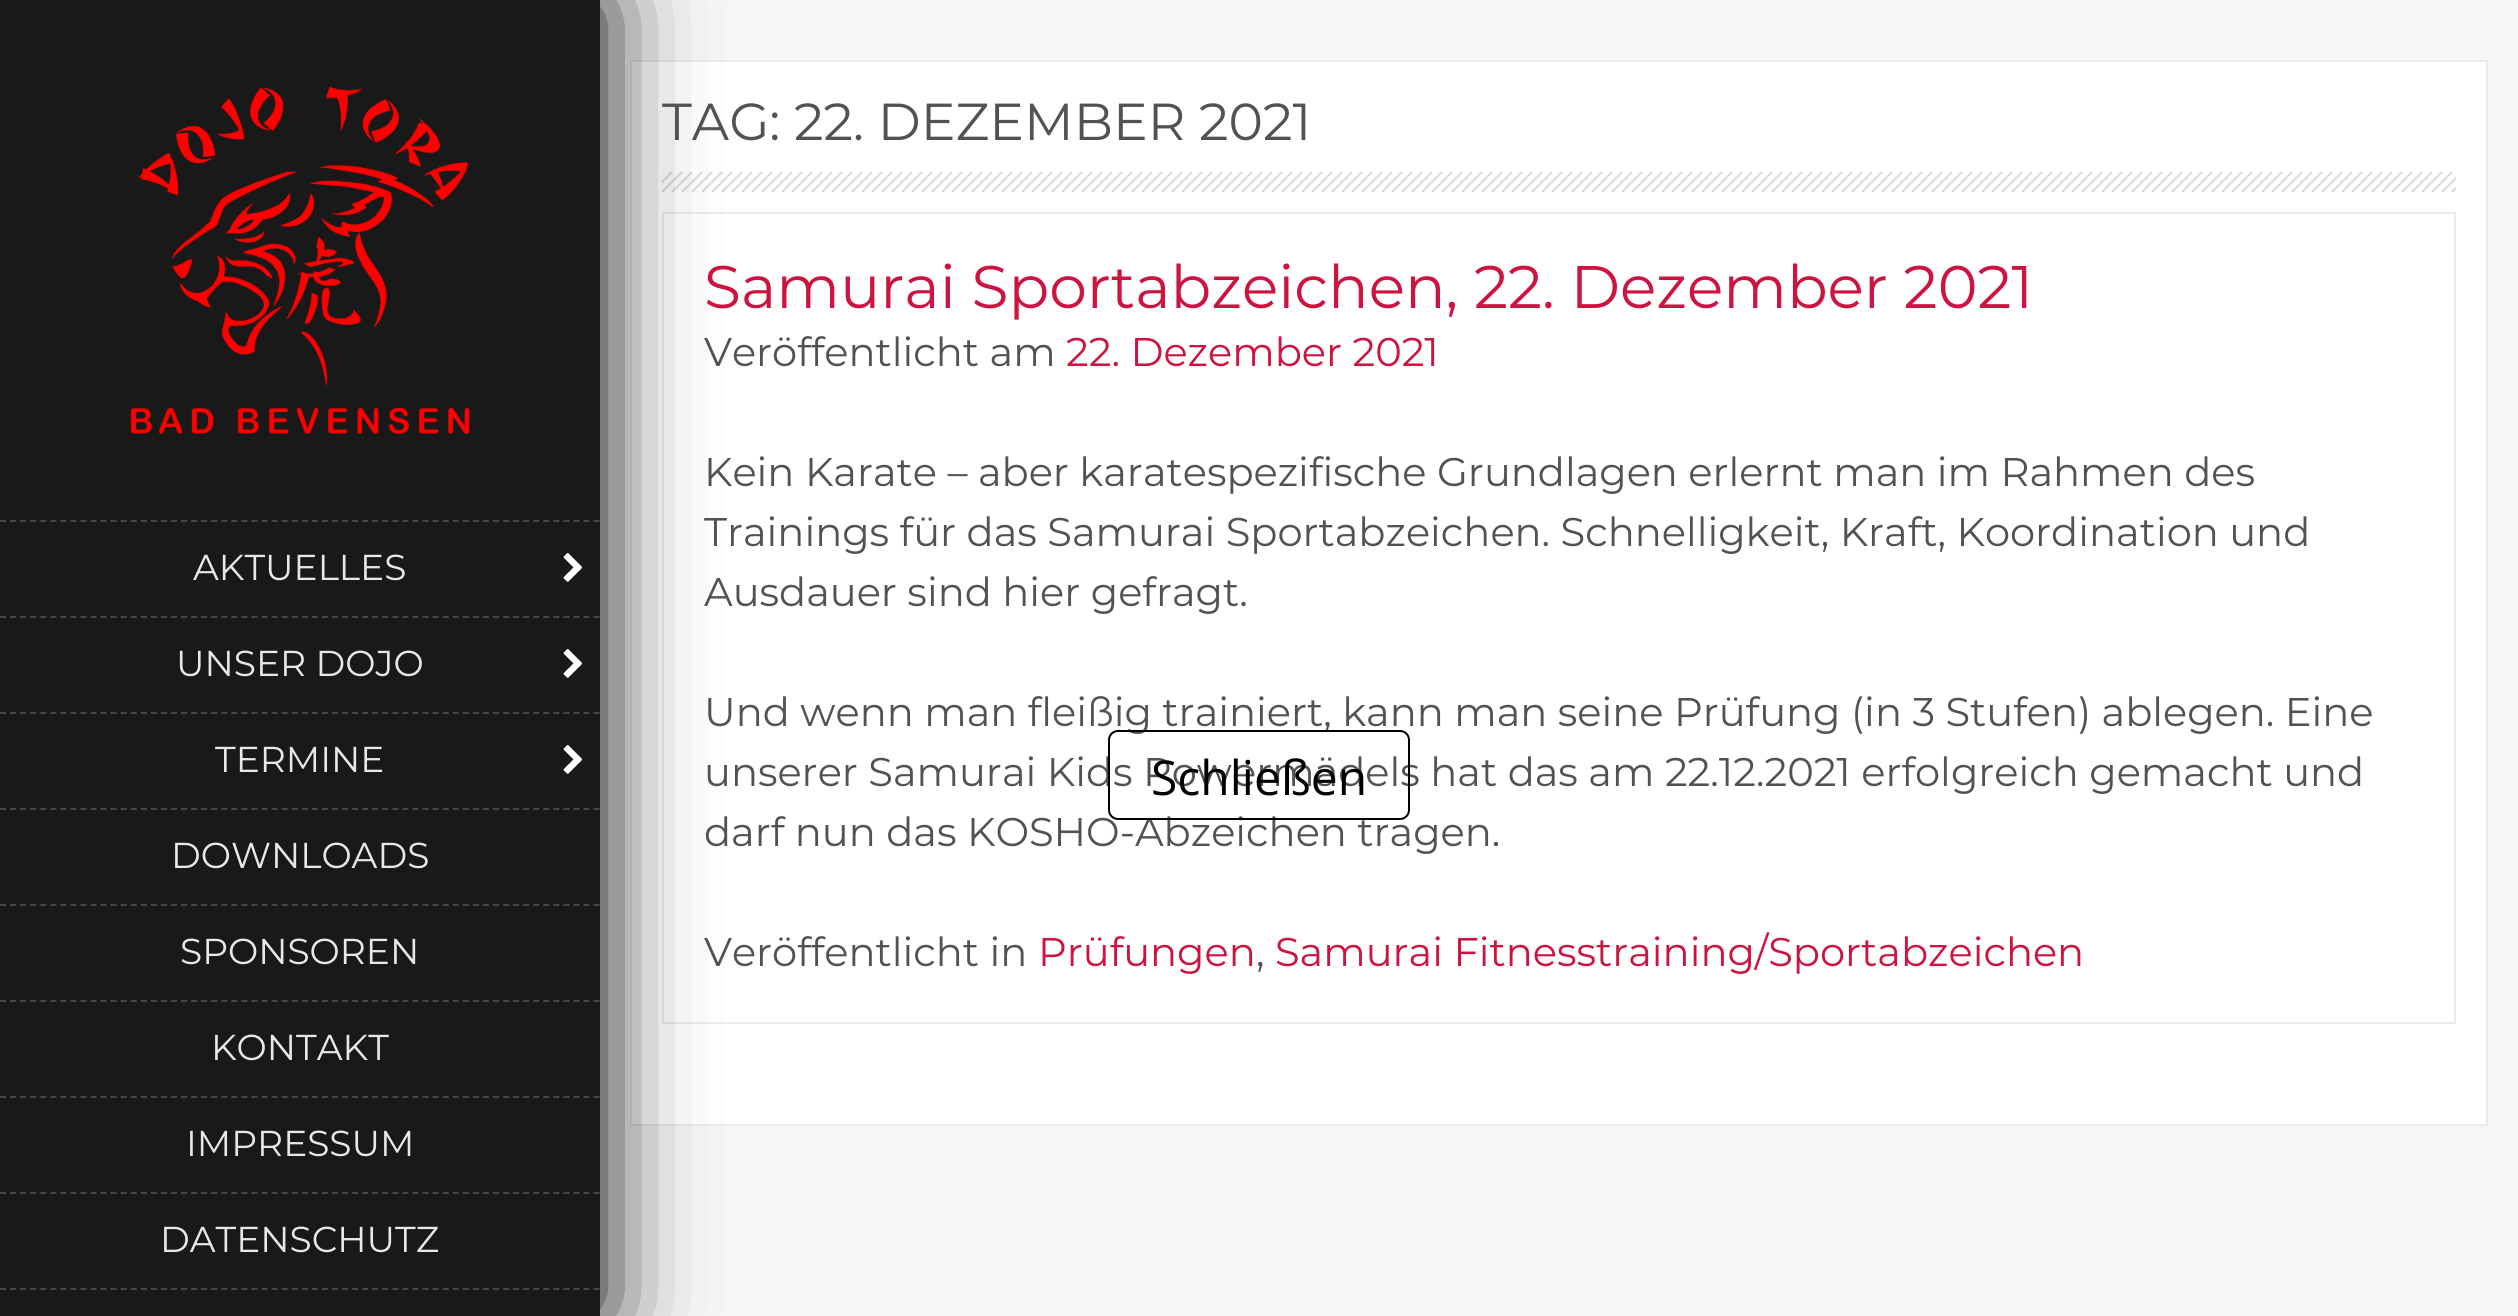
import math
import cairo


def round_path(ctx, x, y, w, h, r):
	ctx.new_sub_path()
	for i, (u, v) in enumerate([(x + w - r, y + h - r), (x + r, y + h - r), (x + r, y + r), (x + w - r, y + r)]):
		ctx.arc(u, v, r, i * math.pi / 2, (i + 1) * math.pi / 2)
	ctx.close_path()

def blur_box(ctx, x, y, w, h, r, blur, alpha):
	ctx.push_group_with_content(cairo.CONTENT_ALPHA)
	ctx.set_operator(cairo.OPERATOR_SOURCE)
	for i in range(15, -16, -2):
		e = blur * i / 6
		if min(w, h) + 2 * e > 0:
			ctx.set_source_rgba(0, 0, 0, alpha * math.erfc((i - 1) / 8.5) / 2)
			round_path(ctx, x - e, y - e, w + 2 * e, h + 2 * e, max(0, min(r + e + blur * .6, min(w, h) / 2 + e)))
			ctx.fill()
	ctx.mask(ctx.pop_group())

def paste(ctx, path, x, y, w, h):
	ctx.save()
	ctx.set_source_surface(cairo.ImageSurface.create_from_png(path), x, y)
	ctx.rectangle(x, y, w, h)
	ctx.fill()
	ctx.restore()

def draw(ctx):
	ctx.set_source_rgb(0.961, 0.961, 0.961)
	ctx.paint()
	ctx.set_source_rgb(1, 1, 1)
	ctx.rectangle(631, 61, 1856, 1064)
	ctx.fill_preserve()
	ctx.set_source_rgb(0.918, 0.918, 0.918)
	ctx.stroke()
	paste(ctx, 'media/3.png', 662, 172, 1794, 20)
	ctx.rectangle(663, 213, 1792, 810)
	ctx.stroke()
	ctx.set_source_rgb(0, 0, 0)
	blur_box(ctx, 0, 0, 600, 1316, 0, 50, 1)
	ctx.set_source_rgb(0.098, 0.098, 0.098)
	ctx.rectangle(0, 0, 600, 1316)
	ctx.fill()
	paste(ctx, 'media/1.png', 130, 86, 340, 348)
	ctx.new_path()
	ctx.move_to(0, 521)
	ctx.line_to(600, 521)
	ctx.set_source_rgb(0.275, 0.275, 0.275)
	ctx.set_dash([6, 4.06])
	ctx.stroke()
	ctx.select_font_face('Montserrat')
	ctx.set_font_size(36)
	ctx.set_source_rgb(0.91, 0.91, 0.91)
	ctx.move_to(193, 580)
	ctx.show_text('AKTUELLES')
	paste(ctx, 'media/2.png', 563, 553, 20, 29)
	ctx.new_path()
	ctx.move_to(0, 617)
	ctx.line_to(600, 617)
	ctx.set_source_rgb(0.275, 0.275, 0.275)
	ctx.stroke()
	ctx.set_source_rgb(0.91, 0.91, 0.91)
	ctx.move_to(176, 676)
	ctx.show_text('UNSER DOJO')
	paste(ctx, 'media/2.png', 563, 649, 20, 29)
	ctx.new_path()
	ctx.move_to(0, 713)
	ctx.line_to(600, 713)
	ctx.set_source_rgb(0.275, 0.275, 0.275)
	ctx.stroke()
	ctx.set_source_rgb(0.91, 0.91, 0.91)
	ctx.move_to(215, 772)
	ctx.show_text('TERMINE')
	paste(ctx, 'media/2.png', 563, 745, 20, 29)
	ctx.new_path()
	ctx.move_to(0, 809)
	ctx.line_to(600, 809)
	ctx.set_source_rgb(0.275, 0.275, 0.275)
	ctx.stroke()
	ctx.set_source_rgb(0.91, 0.91, 0.91)
	ctx.move_to(171, 868)
	ctx.show_text('DOWNLOADS')
	ctx.new_path()
	ctx.move_to(0, 905)
	ctx.line_to(600, 905)
	ctx.set_source_rgb(0.275, 0.275, 0.275)
	ctx.stroke()
	ctx.set_source_rgb(0.91, 0.91, 0.91)
	ctx.move_to(180, 964)
	ctx.show_text('SPONSOREN')
	ctx.new_path()
	ctx.move_to(0, 1001)
	ctx.line_to(600, 1001)
	ctx.set_source_rgb(0.275, 0.275, 0.275)
	ctx.stroke()
	ctx.set_source_rgb(0.91, 0.91, 0.91)
	ctx.move_to(211, 1060)
	ctx.show_text('KONTAKT')
	ctx.new_path()
	ctx.move_to(0, 1097)
	ctx.line_to(600, 1097)
	ctx.set_source_rgb(0.275, 0.275, 0.275)
	ctx.stroke()
	ctx.set_source_rgb(0.91, 0.91, 0.91)
	ctx.move_to(186, 1156)
	ctx.show_text('IMPRESSUM')
	ctx.new_path()
	ctx.move_to(0, 1193)
	ctx.line_to(600, 1193)
	ctx.set_source_rgb(0.275, 0.275, 0.275)
	ctx.stroke()
	ctx.new_path()
	ctx.move_to(0, 1289)
	ctx.line_to(600, 1289)
	ctx.stroke()
	ctx.set_source_rgb(0.91, 0.91, 0.91)
	ctx.move_to(160, 1252)
	ctx.show_text('DATENSCHUTZ')
	ctx.set_font_size(52)
	ctx.set_source_rgb(0.322, 0.322, 0.322)
	ctx.move_to(662, 140)
	ctx.show_text('TAG: 22. DEZEMBER 2021')
	ctx.set_font_size(60)
	ctx.set_source_rgb(0.804, 0.075, 0.247)
	ctx.move_to(704, 308)
	ctx.show_text('Samurai Sportabzeichen, 22. Dezember 2021')
	ctx.set_font_size(40)
	ctx.set_source_rgb(0.322, 0.322, 0.322)
	ctx.move_to(704, 366)
	ctx.show_text('Veröffentlicht am')
	ctx.set_source_rgb(0.804, 0.075, 0.247)
	ctx.move_to(1066, 366)
	ctx.show_text('22. Dezember 2021')
	ctx.set_source_rgb(0.322, 0.322, 0.322)
	for x, y, s in [
		(704, 486, 'Kein Karate – aber karatespezifische Grundlagen erlernt man im Rahmen des'),
		(704, 546, 'Trainings für das Samurai Sportabzeichen. Schnelligkeit, Kraft, Koordination und'),
		(704, 606, 'Ausdauer sind hier gefragt.'),
		(704, 726, 'Und wenn man fleißig trainiert, kann man seine Prüfung (in 3 Stufen) ablegen. Eine'),
		(704, 786, 'unserer Samurai Kids Powermädels hat das am 22.12.2021 erfolgreich gemacht und'),
		(704, 846, 'darf nun das KOSHO-Abzeichen tragen.'),
		(704, 966, 'Veröffentlicht in'),
	]:
		ctx.move_to(x, y)
		ctx.show_text(s)
	ctx.set_source_rgb(0.804, 0.075, 0.247)
	ctx.move_to(1038, 966)
	ctx.show_text('Prüfungen')
	ctx.set_source_rgb(0.322, 0.322, 0.322)
	ctx.move_to(1256, 966)
	ctx.show_text(',')
	ctx.set_source_rgb(0.804, 0.075, 0.247)
	ctx.move_to(1275, 966)
	ctx.show_text('Samurai Fitnesstraining/Sportabzeichen')
	round_path(ctx, 1109, 731, 300, 88, 9)
	ctx.set_source_rgb(0, 0, 0)
	ctx.set_dash([])
	ctx.stroke()
	ctx.select_font_face('Open Sans')
	ctx.set_font_size(48)
	ctx.move_to(1151, 795)
	ctx.show_text('Schließen')


surface = cairo.ImageSurface(cairo.FORMAT_RGB24, 2518, 1316)
ctx = cairo.Context(surface)
options = cairo.FontOptions()
options.set_hint_metrics(cairo.HINT_METRICS_OFF)
options.set_hint_style(cairo.HINT_STYLE_NONE)
ctx.set_font_options(options)
ctx.set_miter_limit(4)
draw(ctx)
surface.write_to_png('image.png')
